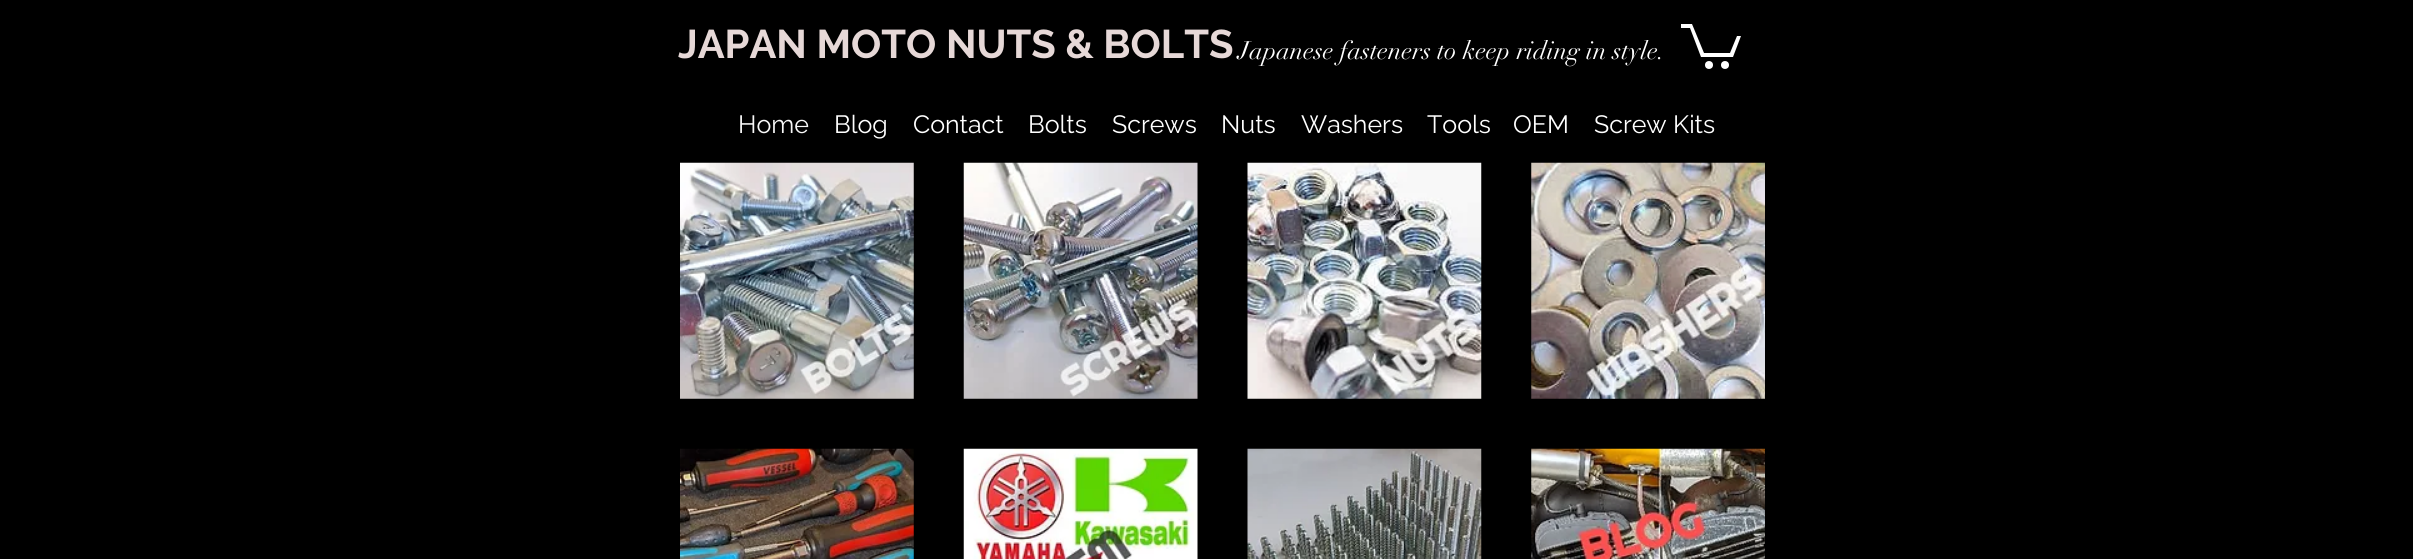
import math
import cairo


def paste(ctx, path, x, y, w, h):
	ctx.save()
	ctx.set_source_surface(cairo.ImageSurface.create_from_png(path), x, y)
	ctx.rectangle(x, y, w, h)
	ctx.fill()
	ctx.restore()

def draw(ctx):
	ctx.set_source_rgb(0, 0, 0)
	ctx.paint()
	ctx.select_font_face('Raleway', cairo.FONT_SLANT_NORMAL, cairo.FONT_WEIGHT_BOLD)
	ctx.set_font_size(40)
	ctx.set_source_rgb(0.902, 0.847, 0.843)
	ctx.move_to(678, 58)
	ctx.show_text('JAPAN MOTO NUTS & BOLTS')
	ctx.set_source_rgb(1, 1, 1)
	ctx.new_path()
	ctx.move_to(1741, 36)
	ctx.line_to(1733, 57)
	ctx.line_to(1701, 57)
	ctx.line_to(1690, 28)
	ctx.line_to(1681, 28)
	ctx.line_to(1681, 24)
	ctx.line_to(1692, 24)
	ctx.line_to(1704, 53)
	ctx.line_to(1730, 53)
	ctx.line_to(1737, 36)
	ctx.fill()
	ctx.arc(1725, 65, 4, 0, 2 * math.pi)
	ctx.fill()
	ctx.arc(1709, 65, 4, 0, 2 * math.pi)
	ctx.fill()
	ctx.select_font_face('didot')
	ctx.set_font_size(25)
	ctx.move_to(1238, 59)
	ctx.show_text('Japanese fasteners to keep riding in style.')
	ctx.select_font_face('Raleway')
	ctx.set_source_rgb(0.969, 0.969, 0.969)
	ctx.move_to(738, 133)
	ctx.show_text('Home')
	ctx.set_source_rgb(1, 1, 1)
	for x, y, s in [
		(834, 133, 'Blog'),
		(913, 133, 'Contact'),
		(1028, 133, 'Bolts'),
		(1112, 133, 'Screws'),
		(1221, 133, 'Nuts'),
		(1301, 133, 'Washers'),
		(1427, 133, 'Tools'),
		(1513, 133, 'OEM'),
		(1594, 133, 'Screw Kits'),
	]:
		ctx.move_to(x, y)
		ctx.show_text(s)
	paste(ctx, 'media/1.png', 680, 162, 234, 237)
	paste(ctx, 'media/2.png', 963, 162, 235, 237)
	paste(ctx, 'media/3.png', 1247, 162, 235, 237)
	paste(ctx, 'media/4.png', 1531, 162, 234, 237)
	paste(ctx, 'media/5.png', 680, 448, 234, 111)
	paste(ctx, 'media/6.png', 963, 448, 235, 111)
	paste(ctx, 'media/7.png', 1247, 448, 235, 111)
	paste(ctx, 'media/8.png', 1531, 448, 234, 111)


surface = cairo.ImageSurface(cairo.FORMAT_RGB24, 2413, 559)
ctx = cairo.Context(surface)
options = cairo.FontOptions()
options.set_hint_metrics(cairo.HINT_METRICS_OFF)
options.set_hint_style(cairo.HINT_STYLE_NONE)
ctx.set_font_options(options)
ctx.set_miter_limit(4)
draw(ctx)
surface.write_to_png('image.png')
